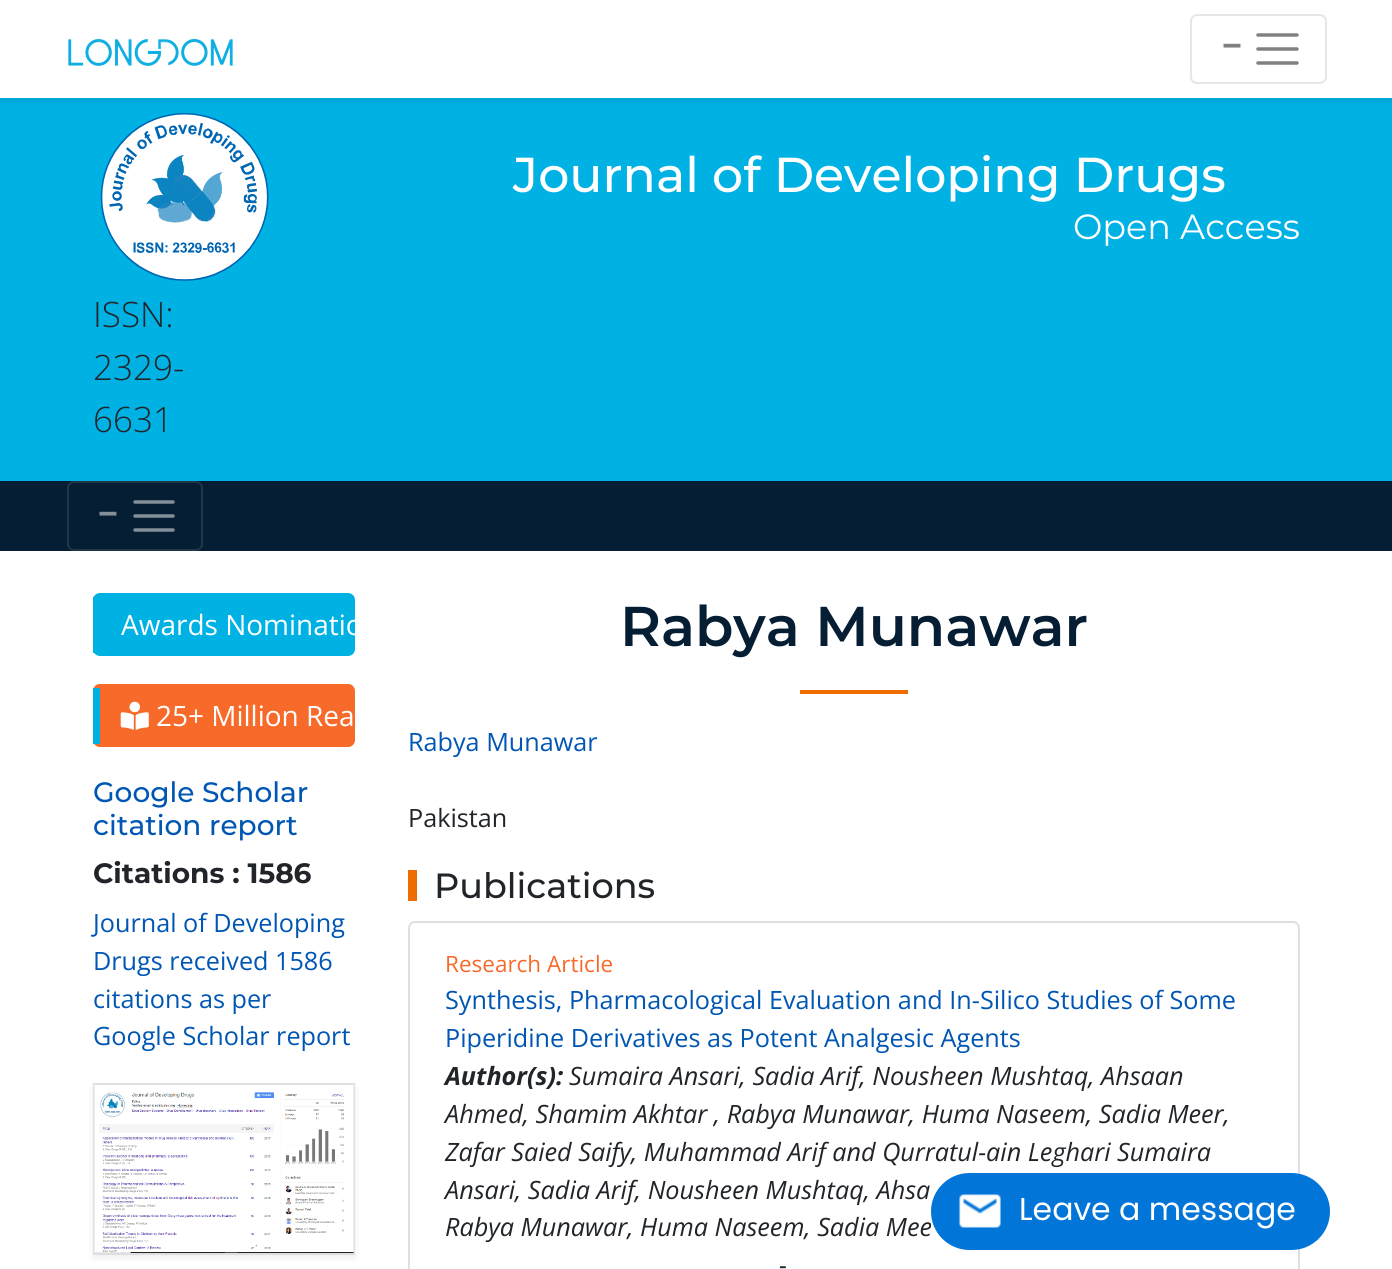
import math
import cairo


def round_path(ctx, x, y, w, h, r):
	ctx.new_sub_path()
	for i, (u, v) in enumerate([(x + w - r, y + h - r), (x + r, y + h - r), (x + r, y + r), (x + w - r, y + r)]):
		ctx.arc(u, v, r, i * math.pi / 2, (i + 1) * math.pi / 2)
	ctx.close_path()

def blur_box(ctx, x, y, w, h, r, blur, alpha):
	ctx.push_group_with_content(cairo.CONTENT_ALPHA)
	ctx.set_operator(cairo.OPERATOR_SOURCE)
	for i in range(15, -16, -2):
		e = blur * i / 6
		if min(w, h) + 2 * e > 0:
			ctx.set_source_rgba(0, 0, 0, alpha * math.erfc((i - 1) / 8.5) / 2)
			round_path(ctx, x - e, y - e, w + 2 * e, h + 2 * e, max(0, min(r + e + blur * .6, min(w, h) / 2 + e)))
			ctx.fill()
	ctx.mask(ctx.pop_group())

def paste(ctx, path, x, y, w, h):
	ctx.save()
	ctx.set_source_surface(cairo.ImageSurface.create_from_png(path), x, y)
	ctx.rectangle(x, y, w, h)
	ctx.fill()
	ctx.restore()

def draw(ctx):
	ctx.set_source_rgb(1, 1, 1)
	ctx.paint()
	ctx.set_source_rgb(0, 0.694, 0.894)
	ctx.rectangle(0, 98, 1392, 383)
	ctx.fill()
	ctx.save()
	ctx.rectangle(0, 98, 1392, 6)
	ctx.clip()
	ctx.set_source_rgb(0, 0, 0)
	blur_box(ctx, 0, 4, 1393, 98, 0, 3.5, 0.07)
	ctx.restore()
	paste(ctx, 'media/1.png', 68, 39, 165, 27)
	round_path(ctx, 1191, 15, 135, 68, 6)
	ctx.set_source_rgb(0.902, 0.902, 0.902)
	ctx.stroke()
	ctx.select_font_face('Open Sans', cairo.FONT_SLANT_NORMAL, cairo.FONT_WEIGHT_BOLD)
	ctx.set_font_size(35)
	ctx.set_source_rgb(0.502, 0.502, 0.502)
	ctx.move_to(1222, 58)
	ctx.show_text('−')
	ctx.new_path()
	ctx.move_to(1258, 35)
	ctx.line_to(1297, 35)
	ctx.move_to(1258, 49)
	ctx.line_to(1297, 49)
	ctx.move_to(1258, 63)
	ctx.line_to(1297, 63)
	ctx.set_line_width(3.5)
	ctx.set_line_cap(cairo.LINE_CAP_ROUND)
	ctx.stroke()
	paste(ctx, 'media/2.png', 100, 113, 169, 168)
	ctx.select_font_face('Montserrat Medium')
	ctx.set_font_size(49)
	ctx.set_source_rgb(1, 1, 1)
	ctx.move_to(513, 192)
	ctx.show_text('Journal of Developing Drugs')
	ctx.select_font_face('Montserrat')
	ctx.set_font_size(35)
	ctx.move_to(1073, 239)
	ctx.show_text('Open Access')
	ctx.select_font_face('Open Sans Light')
	ctx.set_source_rgb(0.129, 0.145, 0.161)
	for x, y, s in [
		(93, 327, 'ISSN:'),
		(93, 380, '2329-'),
		(93, 432, '6631'),
	]:
		ctx.move_to(x, y)
		ctx.show_text(s)
	ctx.set_source_rgb(0.027, 0.118, 0.2)
	ctx.rectangle(0, 481, 1392, 70)
	ctx.fill()
	round_path(ctx, 68, 482, 134, 68, 6)
	ctx.set_source_rgb(0.125, 0.208, 0.278)
	ctx.set_line_width(2)
	ctx.set_line_cap(cairo.LINE_CAP_BUTT)
	ctx.stroke()
	ctx.select_font_face('Open Sans', cairo.FONT_SLANT_NORMAL, cairo.FONT_WEIGHT_BOLD)
	ctx.set_source_rgb(0.514, 0.561, 0.6)
	ctx.move_to(98, 526)
	ctx.show_text('−')
	ctx.new_path()
	ctx.move_to(135, 502)
	ctx.line_to(173, 502)
	ctx.move_to(135, 516)
	ctx.line_to(173, 516)
	ctx.move_to(135, 530)
	ctx.line_to(173, 530)
	ctx.set_line_width(3.5)
	ctx.set_line_cap(cairo.LINE_CAP_ROUND)
	ctx.stroke()
	ctx.set_source_rgb(0, 0.694, 0.894)
	round_path(ctx, 93, 593, 262, 63, 7)
	ctx.fill()
	ctx.rectangle(93, 597, 2, 56)
	ctx.fill()
	ctx.select_font_face('Open Sans')
	ctx.set_font_size(28)
	ctx.set_source_rgb(1, 1, 1)
	ctx.move_to(121, 635)
	ctx.show_text('Awards Nominatio')
	ctx.set_source_rgb(0.965, 0.416, 0.161)
	round_path(ctx, 93, 684, 262, 63, 7)
	ctx.fill()
	ctx.set_source_rgb(0, 0.694, 0.894)
	ctx.rectangle(93, 688, 7, 56)
	ctx.fill()
	paste(ctx, 'media/3.png', 120, 701, 29, 29)
	ctx.set_source_rgb(1, 1, 1)
	ctx.move_to(156, 726)
	ctx.show_text('25+ Million Rea')
	ctx.select_font_face('Montserrat Medium')
	ctx.set_source_rgb(0, 0.337, 0.702)
	ctx.move_to(93, 802)
	ctx.show_text('Google Scholar')
	ctx.move_to(93, 835)
	ctx.show_text('citation report')
	ctx.select_font_face('Montserrat', cairo.FONT_SLANT_NORMAL, cairo.FONT_WEIGHT_BOLD)
	ctx.set_source_rgb(0.129, 0.145, 0.161)
	ctx.move_to(93, 883)
	ctx.show_text('Citations : 1586')
	ctx.select_font_face('Open Sans')
	ctx.set_font_size(25.2)
	ctx.set_source_rgb(0, 0.337, 0.702)
	for x, y, s in [
		(93, 932, 'Journal of Developing'),
		(93, 970, 'Drugs received 1586'),
		(93, 1008, 'citations as per'),
		(93, 1045, 'Google Scholar report'),
	]:
		ctx.move_to(x, y)
		ctx.show_text(s)
	ctx.set_source_rgb(0, 0, 0)
	blur_box(ctx, 93, 1087, 262, 171, 0, 3.5, 0.07)
	ctx.rectangle(94, 1084, 260, 170)
	ctx.set_source_rgb(0.875, 0.875, 0.875)
	ctx.set_line_width(2)
	ctx.set_line_cap(cairo.LINE_CAP_BUTT)
	ctx.stroke()
	paste(ctx, 'media/4.png', 94, 1085, 260, 168)
	ctx.select_font_face('Montserrat SemiBold')
	ctx.set_font_size(56)
	ctx.set_source_rgb(0.027, 0.118, 0.2)
	ctx.move_to(620, 646)
	ctx.show_text('Rabya Munawar')
	ctx.set_source_rgb(0.937, 0.424, 0)
	ctx.rectangle(800, 690, 108, 4)
	ctx.fill()
	ctx.select_font_face('Open Sans')
	ctx.set_font_size(25.2)
	ctx.set_source_rgb(0, 0.337, 0.702)
	ctx.move_to(408, 751)
	ctx.show_text('Rabya Munawar')
	ctx.set_source_rgb(0.129, 0.145, 0.161)
	ctx.move_to(408, 827)
	ctx.show_text('Pakistan')
	ctx.set_source_rgb(0.937, 0.424, 0)
	ctx.rectangle(408, 870, 9, 31)
	ctx.fill()
	ctx.select_font_face('Montserrat Medium')
	ctx.set_font_size(35)
	ctx.set_source_rgb(0.129, 0.145, 0.161)
	ctx.move_to(434, 898)
	ctx.show_text('Publications')
	round_path(ctx, 409, 922, 890, 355, 6)
	ctx.set_source_rgb(0.875, 0.875, 0.875)
	ctx.stroke()
	ctx.select_font_face('Open Sans')
	ctx.set_font_size(22.5)
	ctx.set_source_rgb(0.965, 0.416, 0.161)
	ctx.move_to(445, 972)
	ctx.show_text('Research Article')
	ctx.set_font_size(25.2)
	ctx.set_source_rgb(0, 0.337, 0.702)
	ctx.move_to(445, 1009)
	ctx.show_text('Synthesis, Pharmacological Evaluation and In-Silico Studies of Some')
	ctx.move_to(445, 1047)
	ctx.show_text('Piperidine Derivatives as Potent Analgesic Agents')
	ctx.select_font_face('Open Sans', cairo.FONT_SLANT_ITALIC, cairo.FONT_WEIGHT_BOLD)
	ctx.set_source_rgb(0.129, 0.145, 0.161)
	ctx.move_to(445, 1085)
	ctx.show_text('Author(s):')
	ctx.select_font_face('Open Sans', cairo.FONT_SLANT_ITALIC)
	for x, y, s in [
		(569, 1085, 'Sumaira Ansari, Sadia Arif, Nousheen Mushtaq, Ahsaan'),
		(445, 1123, 'Ahmed, Shamim Akhtar , Rabya Munawar, Huma Naseem, Sadia Meer,'),
		(445, 1161, 'Zafar Saied Saify, Muhammad Arif and Qurratul-ain Leghari Sumaira'),
		(445, 1199, 'Ansari, Sadia Arif, Nousheen Mushtaq, Ahsa'),
		(445, 1236, 'Rabya Munawar, Huma Naseem, Sadia Mee'),
		(779, 1274, '-'),
	]:
		ctx.move_to(x, y)
		ctx.show_text(s)
	ctx.set_source_rgb(0.008, 0.459, 0.847)
	round_path(ctx, 931, 1173, 399, 77, 38.5)
	ctx.fill()
	paste(ctx, 'media/5.png', 959, 1194, 42, 34)
	ctx.select_font_face('Poppins')
	ctx.set_font_size(31.5)
	ctx.set_source_rgb(1, 1, 1)
	ctx.move_to(1019, 1220)
	ctx.show_text('Leave a message')


surface = cairo.ImageSurface(cairo.FORMAT_RGB24, 1392, 1269)
ctx = cairo.Context(surface)
options = cairo.FontOptions()
options.set_hint_metrics(cairo.HINT_METRICS_OFF)
options.set_hint_style(cairo.HINT_STYLE_NONE)
ctx.set_font_options(options)
ctx.set_miter_limit(4)
draw(ctx)
surface.write_to_png('image.png')
